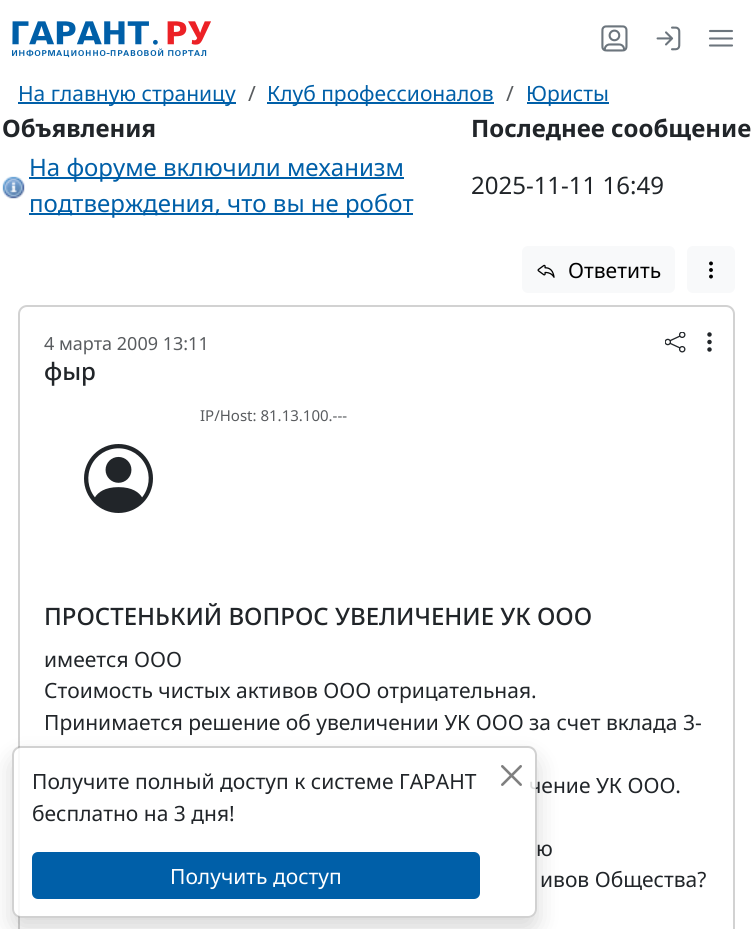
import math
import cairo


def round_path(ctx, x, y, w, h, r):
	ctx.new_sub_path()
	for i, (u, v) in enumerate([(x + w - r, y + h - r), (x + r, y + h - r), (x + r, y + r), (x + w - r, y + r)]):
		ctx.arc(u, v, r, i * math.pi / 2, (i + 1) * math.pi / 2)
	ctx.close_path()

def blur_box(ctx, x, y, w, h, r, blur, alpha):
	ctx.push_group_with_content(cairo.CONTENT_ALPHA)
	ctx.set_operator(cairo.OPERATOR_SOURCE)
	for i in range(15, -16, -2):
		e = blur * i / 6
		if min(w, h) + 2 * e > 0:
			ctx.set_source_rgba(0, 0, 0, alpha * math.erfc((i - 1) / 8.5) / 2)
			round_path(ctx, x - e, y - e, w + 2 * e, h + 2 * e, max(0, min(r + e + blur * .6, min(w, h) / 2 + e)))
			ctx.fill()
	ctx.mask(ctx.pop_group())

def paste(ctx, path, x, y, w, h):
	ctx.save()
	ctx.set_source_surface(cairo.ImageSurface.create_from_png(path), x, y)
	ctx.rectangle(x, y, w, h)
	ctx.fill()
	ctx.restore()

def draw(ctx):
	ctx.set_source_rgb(1, 1, 1)
	ctx.paint()
	paste(ctx, 'media/1.png', 12, 21, 199, 37)
	paste(ctx, 'media/2.png', 601, 25, 27, 27)
	paste(ctx, 'media/3.png', 656, 26, 25, 25)
	ctx.new_path()
	ctx.move_to(710, 38.5)
	ctx.line_to(732, 38.5)
	ctx.move_to(710, 31)
	ctx.line_to(732, 31)
	ctx.move_to(710, 45.5)
	ctx.line_to(732, 45.5)
	ctx.set_source_rgb(0.424, 0.459, 0.49)
	ctx.set_line_width(2.1)
	ctx.set_line_cap(cairo.LINE_CAP_ROUND)
	ctx.set_line_join(cairo.LINE_JOIN_ROUND)
	ctx.stroke()
	ctx.set_source_rgb(0, 0.373, 0.659)
	ctx.rectangle(18, 102, 218, 2)
	ctx.fill()
	ctx.select_font_face('Noto Sans')
	ctx.set_font_size(21)
	ctx.move_to(18, 101)
	ctx.show_text('На главную страницу')
	ctx.set_source_rgb(0.349, 0.361, 0.373)
	ctx.move_to(248, 101)
	ctx.show_text('/')
	ctx.set_source_rgb(0, 0.373, 0.659)
	ctx.rectangle(267, 102, 227, 2)
	ctx.fill()
	ctx.move_to(267, 101)
	ctx.show_text('Клуб профессионалов')
	ctx.set_source_rgb(0.349, 0.361, 0.373)
	ctx.move_to(506, 101)
	ctx.show_text('/')
	ctx.set_source_rgb(0, 0.373, 0.659)
	ctx.rectangle(527, 102, 82, 2)
	ctx.fill()
	ctx.move_to(526, 101)
	ctx.show_text('Юристы')
	ctx.select_font_face('Noto Sans', cairo.FONT_SLANT_NORMAL, cairo.FONT_WEIGHT_BOLD)
	ctx.set_font_size(24)
	ctx.set_source_rgb(0.129, 0.145, 0.161)
	ctx.move_to(2, 137)
	ctx.show_text('Объявления')
	ctx.move_to(471, 137)
	ctx.show_text('Последнее сообщение')
	paste(ctx, 'media/4.png', 2, 176, 23, 23)
	ctx.set_source_rgb(0, 0.373, 0.659)
	ctx.rectangle(29, 177, 375, 2)
	ctx.fill()
	ctx.select_font_face('Noto Sans')
	ctx.move_to(29, 176)
	ctx.show_text('На форуме включили механизм')
	ctx.rectangle(29, 213, 384, 2)
	ctx.fill()
	ctx.move_to(29, 212)
	ctx.show_text('подтверждения, что вы не робот')
	ctx.set_source_rgb(0.129, 0.145, 0.161)
	ctx.move_to(471, 194)
	ctx.show_text('2025-11-11 16:49')
	ctx.set_source_rgb(0.969, 0.973, 0.98)
	round_path(ctx, 522, 246, 153, 47, 6)
	ctx.fill()
	paste(ctx, 'media/5.png', 537, 264, 18, 14)
	ctx.set_font_size(21)
	ctx.set_source_rgb(0, 0, 0)
	ctx.move_to(568, 278)
	ctx.show_text('Ответить')
	ctx.set_source_rgb(0.969, 0.973, 0.98)
	round_path(ctx, 687, 246, 48, 47, 6)
	ctx.fill()
	paste(ctx, 'media/6.png', 709, 261, 4, 18)
	round_path(ctx, 19, 306, 715, 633, 8)
	ctx.set_source_rgb(0.824, 0.824, 0.824)
	ctx.set_line_width(2)
	ctx.set_line_cap(cairo.LINE_CAP_BUTT)
	ctx.set_line_join(cairo.LINE_JOIN_MITER)
	ctx.stroke()
	paste(ctx, 'media/7.png', 665, 332, 21, 21)
	paste(ctx, 'media/8.png', 707, 332, 5, 20)
	ctx.set_font_size(18)
	ctx.set_source_rgb(0.349, 0.361, 0.373)
	ctx.move_to(44, 350)
	ctx.show_text('4 марта 2009 13:11')
	ctx.select_font_face('Noto Sans Medium')
	ctx.set_font_size(24)
	ctx.set_source_rgb(0.129, 0.145, 0.161)
	ctx.move_to(44, 380)
	ctx.show_text('фыр')
	ctx.select_font_face('Noto Sans')
	ctx.set_font_size(15)
	ctx.set_source_rgb(0.349, 0.361, 0.373)
	ctx.move_to(200, 421)
	ctx.show_text('IP/Host: 81.13.100.---')
	paste(ctx, 'media/9.png', 84, 444, 69, 69)
	ctx.select_font_face('Noto Sans Medium')
	ctx.set_font_size(24)
	ctx.set_source_rgb(0.129, 0.145, 0.161)
	ctx.move_to(44, 625)
	ctx.show_text('ПРОСТЕНЬКИЙ ВОПРОС УВЕЛИЧЕНИЕ УК ООО')
	ctx.select_font_face('Noto Sans')
	ctx.set_font_size(21)
	for x, y, s in [
		(44, 667, 'имеется ООО'),
		(44, 698, 'Стоимость чистых активов ООО отрицательная.'),
		(44, 730, 'Принимается решение об увеличении УК ООО за счет вклада 3-'),
		(529, 793, 'чение УК ООО.'),
		(536, 856, 'ю'),
		(540, 887, 'ивов Общества?'),
	]:
		ctx.move_to(x, y)
		ctx.show_text(s)
	ctx.save()
	ctx.set_fill_rule(cairo.FILL_RULE_EVEN_ODD)
	ctx.new_path()
	ctx.move_to(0, 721)
	ctx.line_to(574, 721)
	ctx.line_to(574, 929)
	ctx.line_to(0, 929)
	ctx.close_path()
	ctx.move_to(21, 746)
	ctx.line_to(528, 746)
	ctx.curve_to(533, 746, 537, 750, 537, 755)
	ctx.line_to(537, 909)
	ctx.curve_to(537, 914, 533, 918, 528, 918)
	ctx.line_to(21, 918)
	ctx.curve_to(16, 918, 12, 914, 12, 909)
	ctx.line_to(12, 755)
	ctx.curve_to(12, 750, 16, 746, 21, 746)
	ctx.close_path()
	ctx.clip()
	ctx.set_source_rgb(0, 0, 0)
	blur_box(ctx, 12, 758, 525, 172, 9, 12, 0.15)
	ctx.restore()
	ctx.set_source_rgba(1, 1, 1, 0.85)
	round_path(ctx, 14, 747, 522, 170, 8)
	ctx.fill()
	round_path(ctx, 13, 747, 523, 170, 8)
	ctx.set_source_rgba(0, 0, 0, 0.18)
	ctx.stroke()
	ctx.set_source_rgb(0.129, 0.145, 0.161)
	ctx.move_to(32, 789)
	ctx.show_text('Получите полный доступ к системе ГАРАНТ')
	ctx.move_to(32, 821)
	ctx.show_text('бесплатно на 3 дня!')
	ctx.set_source_rgb(0, 0.373, 0.659)
	round_path(ctx, 33, 853, 446, 45, 5)
	ctx.fill_preserve()
	ctx.stroke()
	ctx.set_source_rgb(1, 1, 1)
	ctx.move_to(170, 884)
	ctx.show_text('Получить доступ')
	paste(ctx, 'media/10.png', 501, 765, 21, 21)


surface = cairo.ImageSurface(cairo.FORMAT_RGB24, 753, 929)
ctx = cairo.Context(surface)
options = cairo.FontOptions()
options.set_hint_metrics(cairo.HINT_METRICS_OFF)
options.set_hint_style(cairo.HINT_STYLE_NONE)
ctx.set_font_options(options)
ctx.set_miter_limit(4)
draw(ctx)
surface.write_to_png('image.png')
